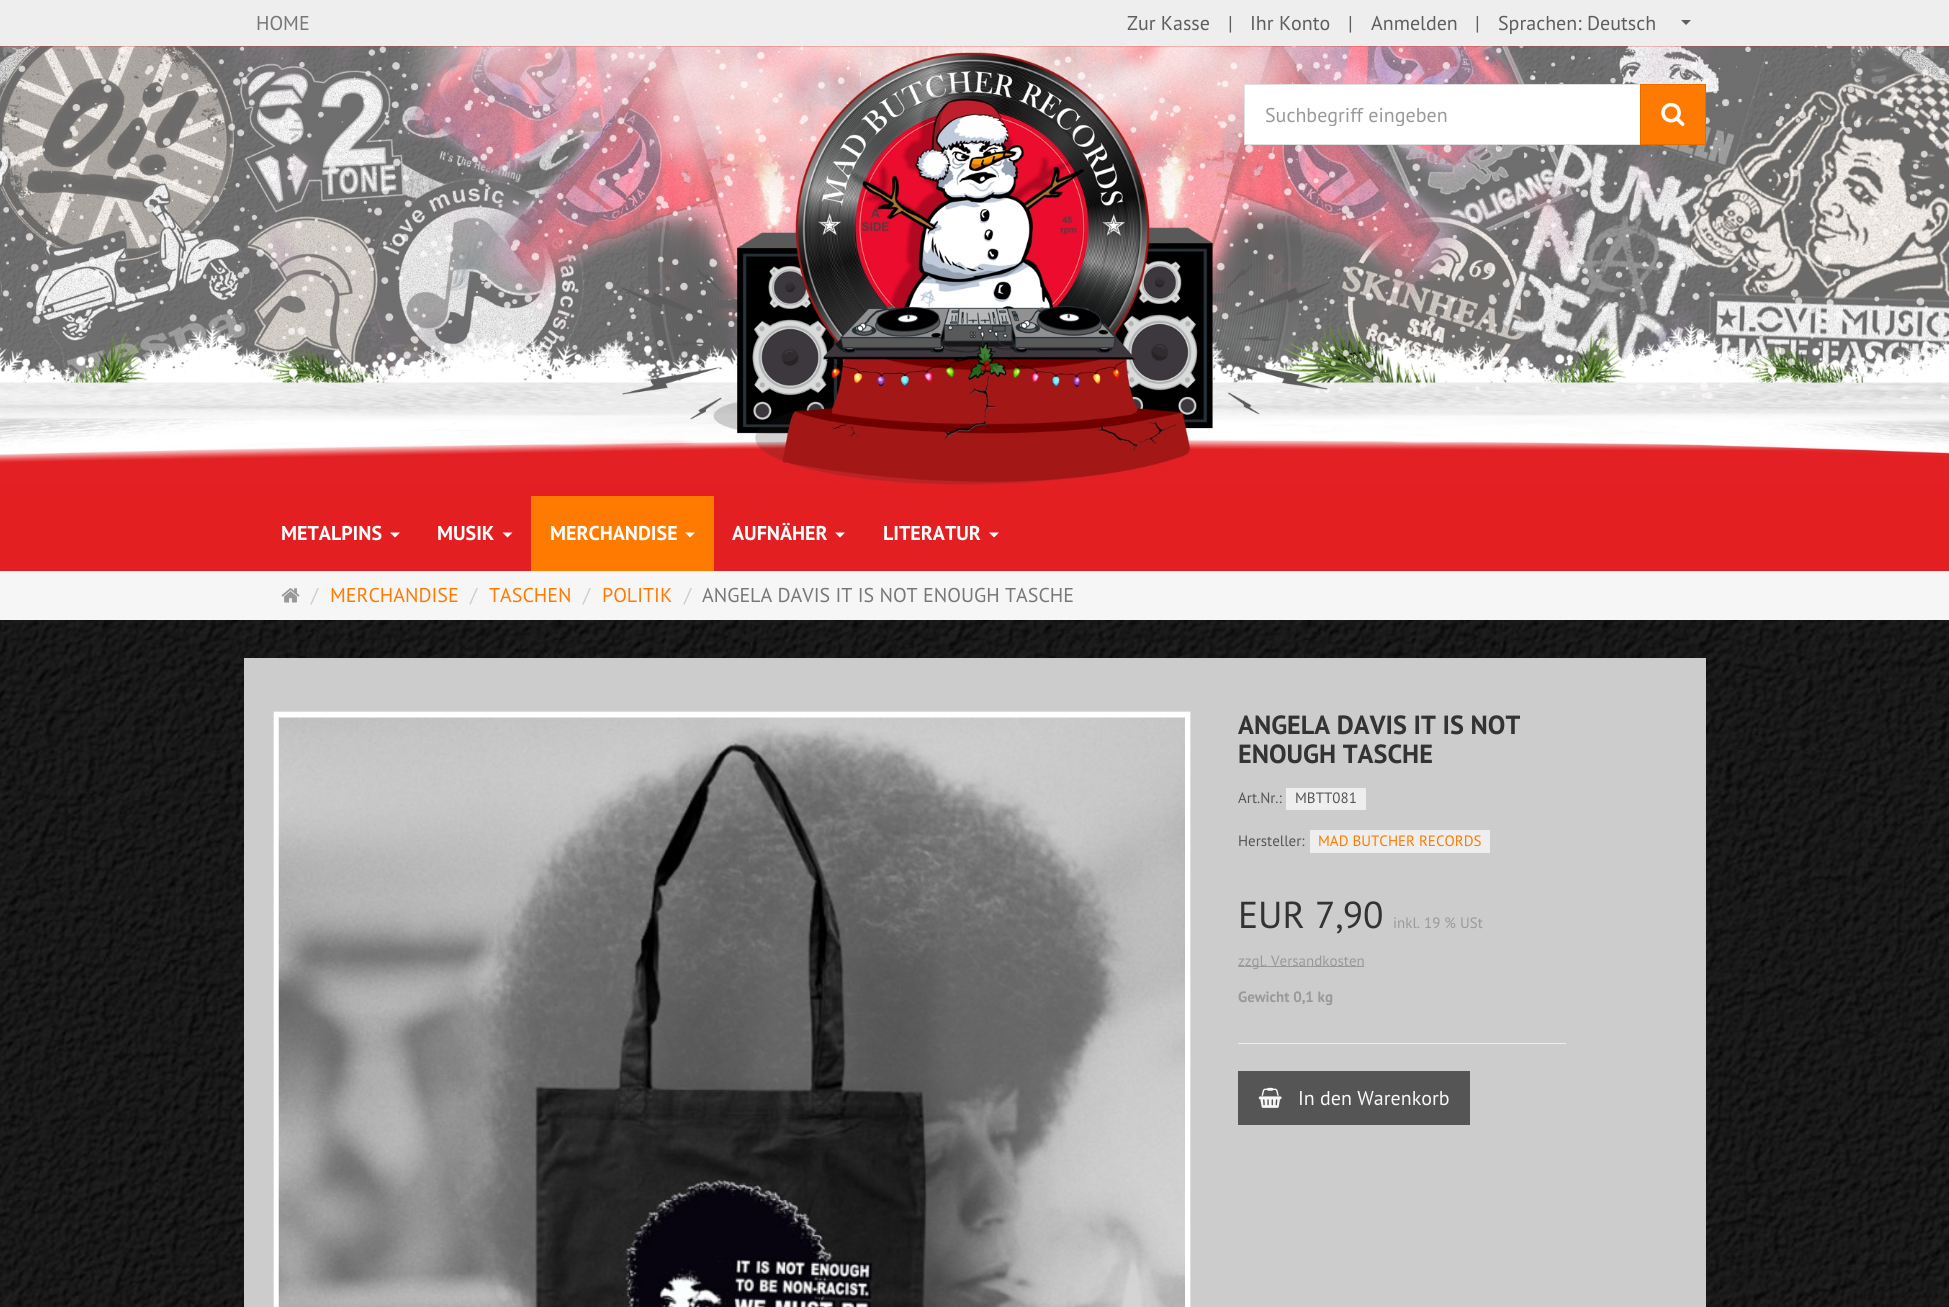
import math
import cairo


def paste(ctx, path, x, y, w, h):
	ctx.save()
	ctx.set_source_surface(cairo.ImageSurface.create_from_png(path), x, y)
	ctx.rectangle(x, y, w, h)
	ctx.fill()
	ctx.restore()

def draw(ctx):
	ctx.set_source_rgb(1, 1, 1)
	ctx.paint()
	paste(ctx, 'media/1.png', 0, 620, 1949, 687)
	ctx.set_source_rgb(0.89, 0.122, 0.129)
	ctx.rectangle(0, 46, 1949, 525)
	ctx.fill()
	ctx.set_source_rgb(0.933, 0.933, 0.933)
	ctx.rectangle(0, 0, 1949, 46)
	ctx.fill()
	ctx.select_font_face('PT Sans')
	ctx.set_font_size(20)
	ctx.set_source_rgb(0.467, 0.467, 0.467)
	ctx.move_to(256, 30)
	ctx.show_text('HOME')
	ctx.set_source_rgb(0.369, 0.369, 0.369)
	for x, y, s in [
		(1127, 30, 'Zur Kasse'),
		(1228, 30, '|'),
		(1250, 30, 'Ihr Konto'),
		(1348, 30, '|'),
		(1371, 30, 'Anmelden'),
		(1475, 30, '|'),
		(1498, 30, 'Sprachen: Deutsch'),
	]:
		ctx.move_to(x, y)
		ctx.show_text(s)
	ctx.new_path()
	ctx.move_to(1681, 20)
	ctx.line_to(1691, 20)
	ctx.line_to(1686, 25)
	ctx.close_path()
	ctx.fill()
	paste(ctx, 'media/2.png', 0, 46, 1949, 439)
	ctx.set_source_rgb(1, 1, 1)
	ctx.rectangle(1244.5, 84.5, 396, 60)
	ctx.fill_preserve()
	ctx.set_source_rgb(0.878, 0.878, 0.878)
	ctx.set_line_width(1)
	ctx.stroke()
	ctx.save()
	ctx.rectangle(1265, 101, 355, 25)
	ctx.clip()
	ctx.set_source_rgb(0.6, 0.6, 0.6)
	ctx.move_to(1265, 122)
	ctx.show_text('Suchbegriff eingeben')
	ctx.restore()
	ctx.set_source_rgb(1, 0.478, 0)
	ctx.rectangle(1640.5, 84.5, 65, 60)
	ctx.fill_preserve()
	ctx.set_source_rgb(0.902, 0.431, 0)
	ctx.stroke()
	paste(ctx, 'media/3.png', 1661, 102, 24, 25)
	ctx.select_font_face('PT Sans', cairo.FONT_SLANT_NORMAL, cairo.FONT_WEIGHT_BOLD)
	ctx.set_source_rgb(1, 1, 1)
	ctx.move_to(281, 540)
	ctx.show_text('METALPINS')
	ctx.new_path()
	ctx.move_to(390, 532.5)
	ctx.line_to(400, 532.5)
	ctx.line_to(395, 537.5)
	ctx.close_path()
	ctx.fill()
	ctx.move_to(437, 540)
	ctx.show_text('MUSIK')
	ctx.new_path()
	ctx.move_to(502.5, 532.5)
	ctx.line_to(512.5, 532.5)
	ctx.line_to(507.5, 537.5)
	ctx.close_path()
	ctx.fill()
	ctx.set_source_rgb(1, 0.478, 0)
	ctx.rectangle(531, 496, 183, 75)
	ctx.fill()
	ctx.set_source_rgb(1, 1, 1)
	ctx.move_to(550, 540)
	ctx.show_text('MERCHANDISE')
	ctx.new_path()
	ctx.move_to(685, 532.5)
	ctx.line_to(695, 532.5)
	ctx.line_to(690, 537.5)
	ctx.close_path()
	ctx.fill()
	ctx.move_to(732, 540)
	ctx.show_text('AUFNÄHER')
	ctx.new_path()
	ctx.move_to(835, 532.5)
	ctx.line_to(845, 532.5)
	ctx.line_to(840, 537.5)
	ctx.close_path()
	ctx.fill()
	ctx.move_to(883, 540)
	ctx.show_text('LITERATUR')
	ctx.new_path()
	ctx.move_to(989, 532.5)
	ctx.line_to(999, 532.5)
	ctx.line_to(994, 537.5)
	ctx.close_path()
	ctx.fill()
	ctx.set_source_rgb(0.961, 0.961, 0.961)
	ctx.rectangle(0, 571, 1949, 49)
	ctx.fill()
	paste(ctx, 'media/4.png', 281, 588, 19, 15)
	ctx.select_font_face('PT Sans')
	ctx.set_source_rgb(0.8, 0.8, 0.8)
	ctx.move_to(311, 602)
	ctx.show_text('/')
	ctx.set_source_rgb(1, 0.478, 0)
	ctx.move_to(330, 602)
	ctx.show_text('MERCHANDISE')
	ctx.set_source_rgb(0.8, 0.8, 0.8)
	ctx.move_to(470, 602)
	ctx.show_text('/')
	ctx.set_source_rgb(1, 0.478, 0)
	ctx.move_to(489, 602)
	ctx.show_text('TASCHEN')
	ctx.set_source_rgb(0.8, 0.8, 0.8)
	ctx.move_to(583, 602)
	ctx.show_text('/')
	ctx.set_source_rgb(1, 0.478, 0)
	ctx.move_to(602, 602)
	ctx.show_text('POLITIK')
	ctx.set_source_rgb(0.8, 0.8, 0.8)
	ctx.move_to(684, 602)
	ctx.show_text('/')
	ctx.set_source_rgb(0.467, 0.467, 0.467)
	ctx.move_to(702, 602)
	ctx.show_text('ANGELA DAVIS IT IS NOT ENOUGH TASCHE')
	ctx.set_source_rgb(0.8, 0.8, 0.8)
	ctx.rectangle(244, 658, 1462, 649)
	ctx.fill()
	ctx.set_source_rgb(1, 1, 1)
	ctx.rectangle(273.5, 711.5, 917, 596)
	ctx.fill_preserve()
	ctx.set_source_rgb(0.867, 0.867, 0.867)
	ctx.stroke()
	paste(ctx, 'media/5.png', 278, 717, 907, 590)
	ctx.select_font_face('PT Sans', cairo.FONT_SLANT_NORMAL, cairo.FONT_WEIGHT_BOLD)
	ctx.set_font_size(26.25)
	ctx.set_source_rgb(0.2, 0.2, 0.2)
	ctx.move_to(1238, 734)
	ctx.show_text('ANGELA DAVIS IT IS NOT')
	ctx.move_to(1238, 763)
	ctx.show_text('ENOUGH TASCHE')
	ctx.select_font_face('PT Sans')
	ctx.set_font_size(15)
	ctx.set_source_rgb(0.333, 0.333, 0.333)
	ctx.move_to(1238, 803)
	ctx.show_text('Art.Nr.:')
	ctx.set_source_rgb(0.933, 0.933, 0.933)
	ctx.rectangle(1286, 788, 80, 22)
	ctx.fill()
	ctx.set_source_rgb(0.333, 0.333, 0.333)
	ctx.move_to(1295, 803)
	ctx.show_text('MBTT081')
	ctx.move_to(1238, 846)
	ctx.show_text('Hersteller:')
	ctx.set_source_rgb(0.933, 0.933, 0.933)
	ctx.rectangle(1310, 830, 180, 23)
	ctx.fill()
	ctx.set_source_rgb(1, 0.478, 0)
	ctx.move_to(1318, 846)
	ctx.show_text('MAD BUTCHER RECORDS')
	ctx.set_font_size(37.5)
	ctx.set_source_rgb(0.2, 0.2, 0.2)
	ctx.move_to(1238, 928)
	ctx.show_text('EUR 7,90')
	ctx.set_font_size(15)
	ctx.set_source_rgb(0.6, 0.6, 0.6)
	ctx.move_to(1393, 928)
	ctx.show_text('inkl. 19 % USt')
	ctx.rectangle(1238, 966, 126, 1)
	ctx.fill()
	ctx.move_to(1238, 966)
	ctx.show_text('zzgl. Versandkosten')
	ctx.select_font_face('PT Sans', cairo.FONT_SLANT_NORMAL, cairo.FONT_WEIGHT_BOLD)
	ctx.move_to(1238, 1002)
	ctx.show_text('Gewicht 0,1 kg')
	ctx.set_source_rgb(0.933, 0.933, 0.933)
	ctx.rectangle(1238, 1043, 328, 1)
	ctx.fill()
	ctx.set_source_rgb(0.333, 0.333, 0.333)
	ctx.rectangle(1238, 1071, 232, 54)
	ctx.fill()
	paste(ctx, 'media/6.png', 1258, 1087, 24, 21)
	ctx.select_font_face('PT Sans')
	ctx.set_font_size(20)
	ctx.set_source_rgb(0.969, 0.969, 0.969)
	ctx.move_to(1298, 1105)
	ctx.show_text('In den Warenkorb')


surface = cairo.ImageSurface(cairo.FORMAT_RGB24, 1949, 1307)
ctx = cairo.Context(surface)
options = cairo.FontOptions()
options.set_hint_metrics(cairo.HINT_METRICS_OFF)
options.set_hint_style(cairo.HINT_STYLE_NONE)
ctx.set_font_options(options)
ctx.set_miter_limit(4)
draw(ctx)
surface.write_to_png('image.png')
